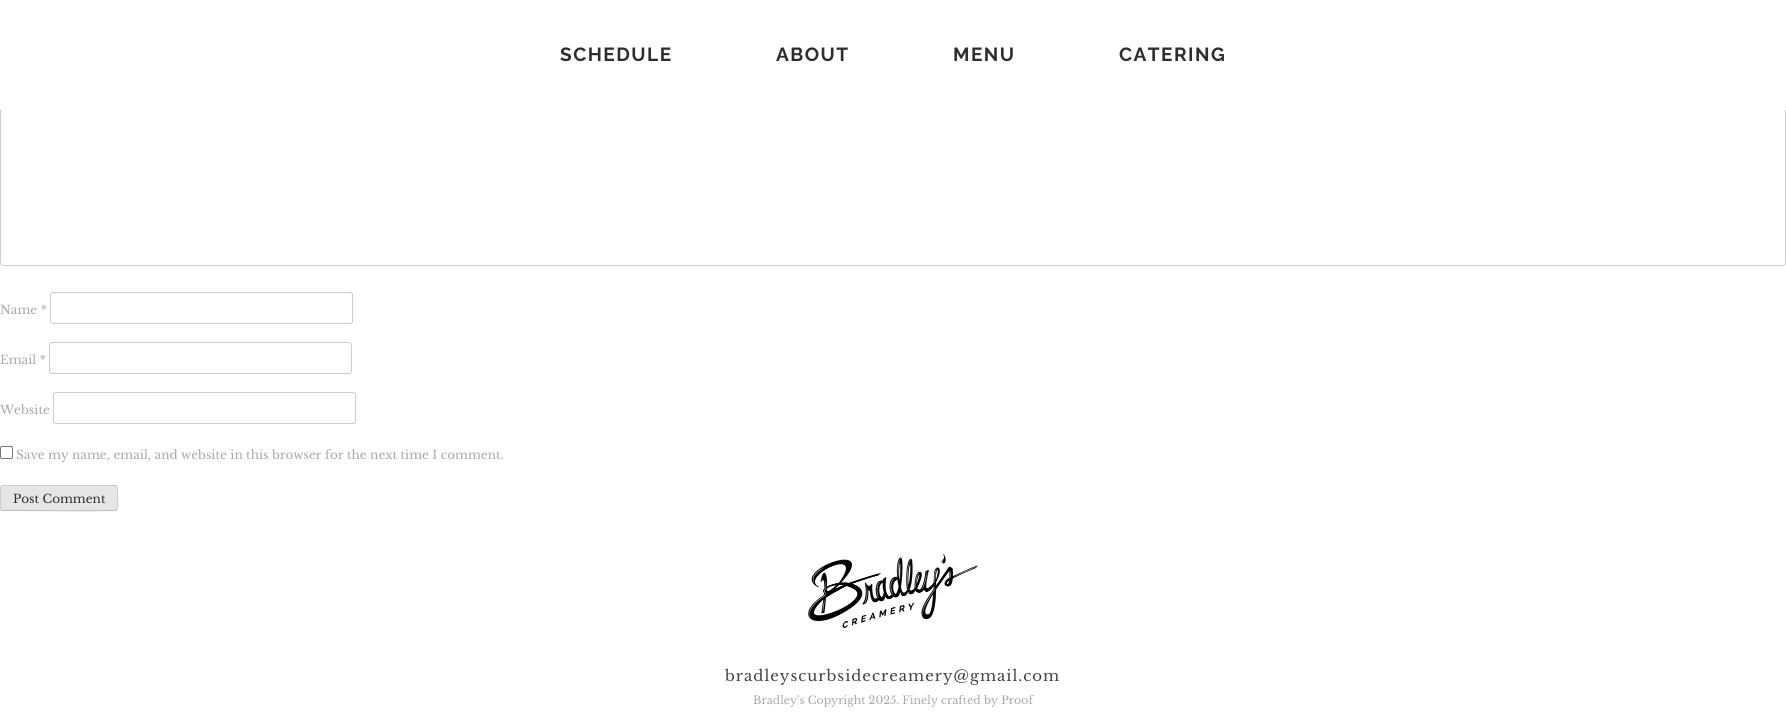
import math
import cairo


def write_spaced(ctx, x, y, s, letter, word):
	ctx.move_to(x, y)
	for ch in s:
		ctx.show_text(ch)
		ctx.rel_move_to(letter + word * (ch == ' '), 0)

def round_path(ctx, x, y, w, h, r):
	ctx.new_sub_path()
	for i, (u, v) in enumerate([(x + w - r, y + h - r), (x + r, y + h - r), (x + r, y + r), (x + w - r, y + r)]):
		ctx.arc(u, v, r, i * math.pi / 2, (i + 1) * math.pi / 2)
	ctx.close_path()

def paste(ctx, path, x, y, w, h):
	ctx.save()
	ctx.set_source_surface(cairo.ImageSurface.create_from_png(path), x, y)
	ctx.rectangle(x, y, w, h)
	ctx.fill()
	ctx.restore()

def draw(ctx):
	ctx.set_source_rgb(1, 1, 1)
	ctx.paint()
	round_path(ctx, 0.5, 68.5, 1785, 197, 2.5)
	ctx.set_source_rgb(0.8, 0.8, 0.8)
	ctx.set_line_width(1)
	ctx.stroke()
	ctx.set_source_rgb(1, 1, 1)
	ctx.rectangle(0, 68, 1786, 42)
	ctx.fill()
	ctx.select_font_face('Raleway', cairo.FONT_SLANT_NORMAL, cairo.FONT_WEIGHT_BOLD)
	ctx.set_font_size(19)
	ctx.set_source_rgb(0.18, 0.18, 0.18)
	for x, y, s in [
		(560, 61, 'SCHEDULE'),
		(776, 61, 'ABOUT'),
		(953, 61, 'MENU'),
		(1119, 61, 'CATERING'),
	]:
		write_spaced(ctx, x, y, s, 1.5, 0)
	ctx.select_font_face('Libre Baskerville')
	ctx.set_font_size(12)
	ctx.set_source_rgb(0.655, 0.663, 0.667)
	ctx.move_to(0, 314)
	ctx.show_text('Name *')
	round_path(ctx, 50.5, 292.5, 302, 31, 2.5)
	ctx.set_source_rgb(0.8, 0.8, 0.8)
	ctx.stroke()
	ctx.set_source_rgb(0.655, 0.663, 0.667)
	ctx.move_to(0, 364)
	ctx.show_text('Email *')
	round_path(ctx, 49.5, 342.5, 302, 31, 2.5)
	ctx.set_source_rgb(0.8, 0.8, 0.8)
	ctx.stroke()
	ctx.set_source_rgb(0.655, 0.663, 0.667)
	ctx.move_to(0, 414)
	ctx.show_text('Website')
	round_path(ctx, 53.5, 392.5, 302, 31, 2.5)
	ctx.set_source_rgb(0.8, 0.8, 0.8)
	ctx.stroke()
	round_path(ctx, 0.5, 446.5, 12, 12, 1.5)
	ctx.set_source_rgb(0.463, 0.463, 0.463)
	ctx.stroke()
	ctx.set_source_rgb(0.655, 0.663, 0.667)
	ctx.move_to(16, 459)
	ctx.show_text('Save my name, email, and website in this browser for the next time I comment.')
	ctx.set_source_rgb(0.902, 0.902, 0.902)
	round_path(ctx, 0, 485, 118, 26, 3)
	ctx.fill()
	ctx.new_path()
	ctx.move_to(117, 510)
	ctx.line_to(116.5, 510)
	ctx.curve_to(114.5, 511.5, 31, 510.5, 21.5, 510.5)
	ctx.line_to(3, 510.5)
	ctx.line_to(1, 510)
	ctx.set_source_rgb(0.733, 0.733, 0.733)
	ctx.stroke()
	ctx.new_path()
	ctx.move_to(1, 510)
	ctx.curve_to(-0.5, 508, 0.5, 500.5, 0.5, 498)
	ctx.line_to(0.5, 491.5)
	ctx.curve_to(0.5, 489.5, 0, 485.5, 3, 485.5)
	ctx.line_to(115, 485.5)
	ctx.curve_to(118, 485.5, 117.5, 489.5, 117.5, 491.5)
	ctx.line_to(117.5, 498)
	ctx.curve_to(117.5, 500.5, 118.5, 508, 117, 510)
	ctx.set_source_rgb(0.8, 0.8, 0.8)
	ctx.stroke()
	ctx.set_source_rgb(0.18, 0.18, 0.18)
	ctx.move_to(13, 503)
	ctx.show_text('Post Comment')
	paste(ctx, 'media/1.png', 808, 554, 170, 74)
	ctx.set_font_size(15)
	ctx.set_source_rgb(0.267, 0.267, 0.267)
	write_spaced(ctx, 725, 681, 'bradleyscurbsidecreamery@gmail.com', 1, 0)
	ctx.set_font_size(11)
	ctx.set_source_rgb(0.655, 0.663, 0.667)
	ctx.move_to(753, 704)
	ctx.show_text('Bradley\'s Copyright 2025. Finely crafted by Proof')


surface = cairo.ImageSurface(cairo.FORMAT_RGB24, 1786, 719)
ctx = cairo.Context(surface)
options = cairo.FontOptions()
options.set_hint_metrics(cairo.HINT_METRICS_OFF)
options.set_hint_style(cairo.HINT_STYLE_NONE)
ctx.set_font_options(options)
ctx.set_miter_limit(4)
draw(ctx)
surface.write_to_png('image.png')
